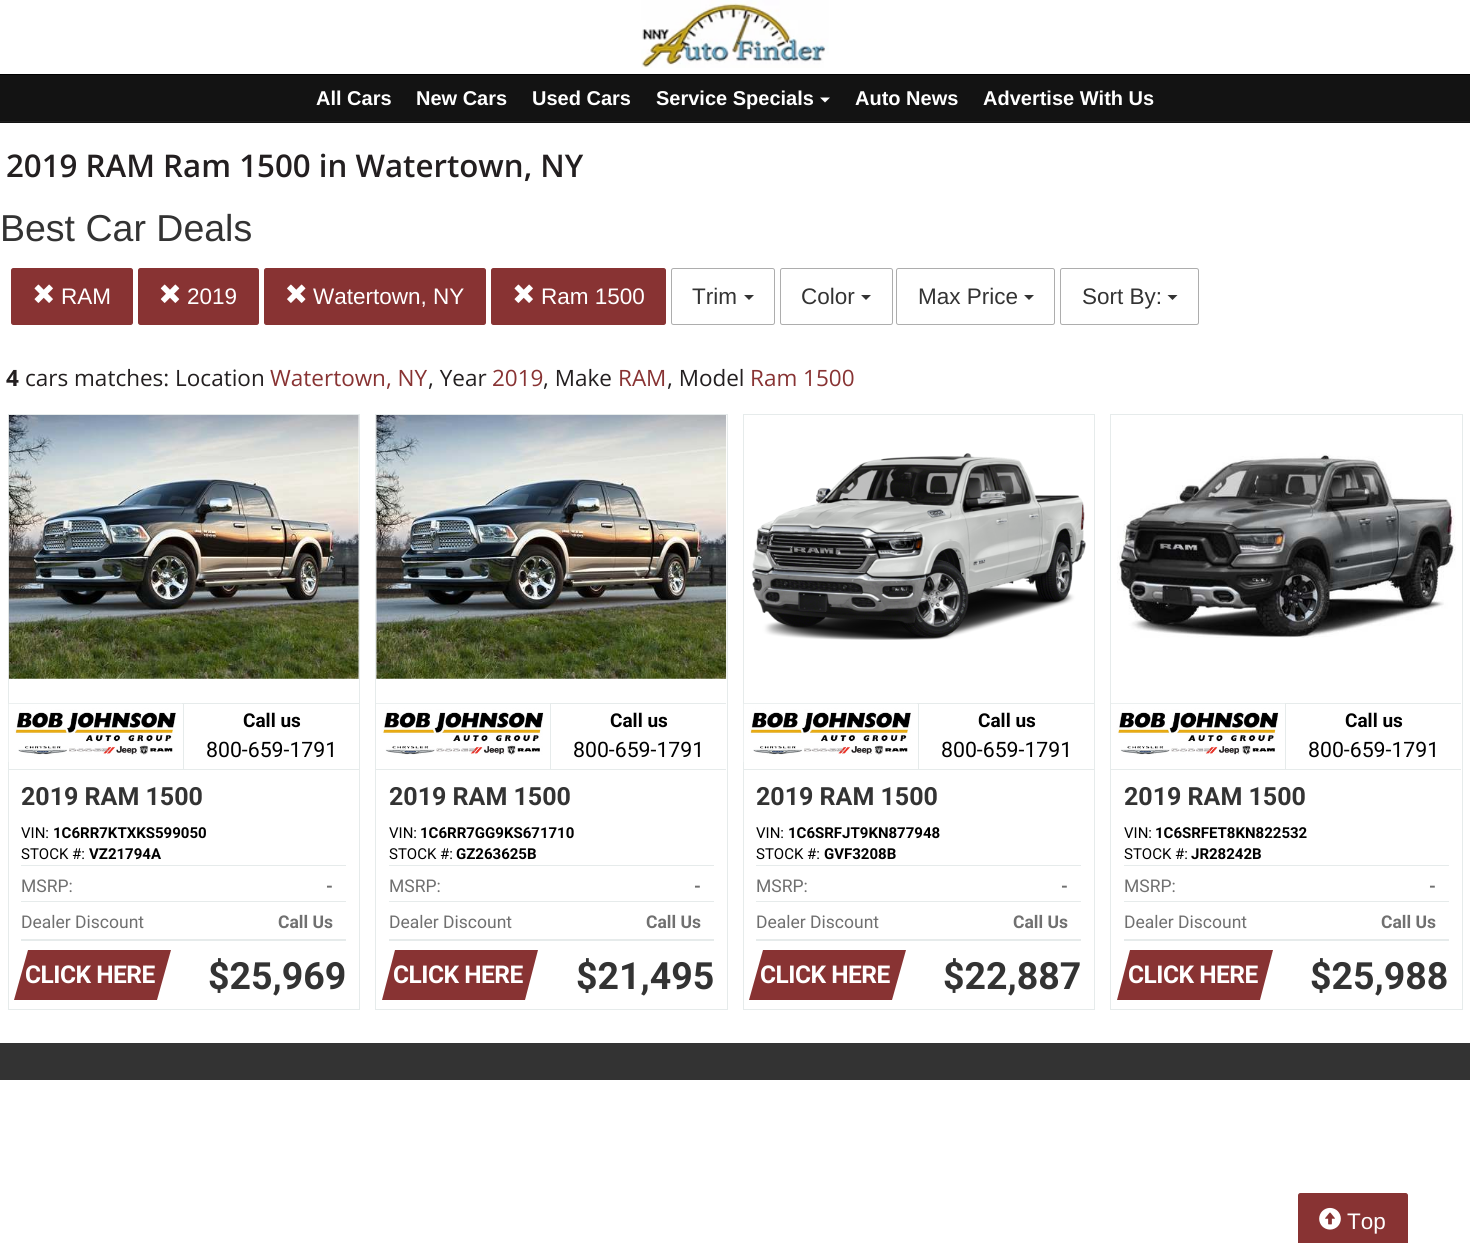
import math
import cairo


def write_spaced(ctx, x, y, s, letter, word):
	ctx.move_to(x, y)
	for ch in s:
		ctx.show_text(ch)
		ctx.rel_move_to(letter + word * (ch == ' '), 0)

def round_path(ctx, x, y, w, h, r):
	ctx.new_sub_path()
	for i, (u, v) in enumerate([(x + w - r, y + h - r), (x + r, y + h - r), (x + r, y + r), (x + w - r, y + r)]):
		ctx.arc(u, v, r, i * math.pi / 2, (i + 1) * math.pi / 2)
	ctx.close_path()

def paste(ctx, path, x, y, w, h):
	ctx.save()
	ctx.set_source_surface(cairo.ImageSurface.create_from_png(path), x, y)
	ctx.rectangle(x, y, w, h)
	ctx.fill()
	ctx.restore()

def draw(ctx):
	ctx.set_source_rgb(1, 1, 1)
	ctx.paint()
	ctx.set_source_rgb(0, 0, 0)
	ctx.rectangle(0, 74, 1470, 1)
	ctx.fill()
	paste(ctx, 'media/1.png', 641, 0, 188, 68)
	ctx.set_source_rgb(0.078, 0.078, 0.078)
	ctx.rectangle(0, 75, 1470, 48)
	ctx.fill()
	ctx.set_source_rgb(0.118, 0.118, 0.118)
	ctx.rectangle(0, 121, 1470, 1)
	ctx.fill()
	ctx.select_font_face('Liberation Sans', cairo.FONT_SLANT_NORMAL, cairo.FONT_WEIGHT_BOLD)
	ctx.set_font_size(20)
	ctx.set_source_rgb(1, 1, 1)
	for x, y, s in [
		(316, 105, 'All Cars'),
		(416, 105, 'New Cars'),
		(532, 105, 'Used Cars'),
		(656, 105, 'Service Specials'),
	]:
		ctx.move_to(x, y)
		ctx.show_text(s)
	ctx.new_path()
	ctx.move_to(820, 97.5)
	ctx.line_to(830, 97.5)
	ctx.line_to(825, 102.5)
	ctx.close_path()
	ctx.fill()
	ctx.move_to(855, 105)
	ctx.show_text('Auto News')
	ctx.move_to(983, 105)
	ctx.show_text('Advertise With Us')
	ctx.select_font_face('Open Sans SemiBold')
	ctx.set_font_size(31.25)
	ctx.set_source_rgb(0.137, 0.122, 0.125)
	ctx.move_to(6, 177)
	ctx.show_text('2019 RAM Ram 1500 in Watertown, NY')
	ctx.select_font_face('Liberation Sans')
	ctx.set_font_size(37.5)
	ctx.set_source_rgb(0.2, 0.2, 0.2)
	ctx.move_to(0, 241)
	ctx.show_text('Best Car Deals')
	ctx.set_source_rgb(0.533, 0.2, 0.2)
	round_path(ctx, 11.5, 268.5, 121, 56, 2)
	ctx.fill_preserve()
	ctx.set_line_width(1)
	ctx.stroke()
	paste(ctx, 'media/2.png', 34, 284, 19, 19)
	ctx.set_font_size(22.5)
	ctx.set_source_rgb(1, 1, 1)
	ctx.move_to(61, 304)
	ctx.show_text('RAM')
	ctx.set_source_rgb(0.533, 0.2, 0.2)
	round_path(ctx, 138.5, 268.5, 120, 56, 2)
	ctx.fill_preserve()
	ctx.stroke()
	paste(ctx, 'media/3.png', 160, 284, 20, 19)
	ctx.set_source_rgb(1, 1, 1)
	ctx.move_to(187, 304)
	ctx.show_text('2019')
	ctx.set_source_rgb(0.533, 0.2, 0.2)
	round_path(ctx, 264.5, 268.5, 221, 56, 2)
	ctx.fill_preserve()
	ctx.stroke()
	paste(ctx, 'media/4.png', 287, 284, 19, 19)
	ctx.set_source_rgb(1, 1, 1)
	ctx.move_to(313, 304)
	ctx.show_text('Watertown, NY')
	ctx.set_source_rgb(0.533, 0.2, 0.2)
	round_path(ctx, 491.5, 268.5, 174, 56, 2)
	ctx.fill_preserve()
	ctx.stroke()
	paste(ctx, 'media/2.png', 514, 284, 19, 19)
	ctx.set_source_rgb(1, 1, 1)
	ctx.move_to(541, 304)
	ctx.show_text('Ram 1500')
	round_path(ctx, 671.5, 268.5, 103, 56, 2)
	ctx.set_source_rgb(0.678, 0.678, 0.678)
	ctx.stroke()
	ctx.set_source_rgb(0.2, 0.2, 0.2)
	ctx.move_to(692, 304)
	ctx.show_text('Trim')
	ctx.new_path()
	ctx.move_to(744, 295)
	ctx.line_to(754, 295)
	ctx.line_to(749, 300)
	ctx.close_path()
	ctx.fill()
	round_path(ctx, 780.5, 268.5, 112, 56, 2)
	ctx.set_source_rgb(0.678, 0.678, 0.678)
	ctx.stroke()
	ctx.set_source_rgb(0.2, 0.2, 0.2)
	ctx.move_to(801, 304)
	ctx.show_text('Color')
	ctx.new_path()
	ctx.move_to(861, 295)
	ctx.line_to(871, 295)
	ctx.line_to(866, 300)
	ctx.close_path()
	ctx.fill()
	round_path(ctx, 896.5, 268.5, 158, 56, 2)
	ctx.set_source_rgb(0.678, 0.678, 0.678)
	ctx.stroke()
	ctx.set_source_rgb(0.2, 0.2, 0.2)
	ctx.move_to(918, 304)
	ctx.show_text('Max Price')
	ctx.new_path()
	ctx.move_to(1024, 295)
	ctx.line_to(1034, 295)
	ctx.line_to(1029, 300)
	ctx.close_path()
	ctx.fill()
	round_path(ctx, 1060.5, 268.5, 138, 56, 2)
	ctx.set_source_rgb(0.678, 0.678, 0.678)
	ctx.stroke()
	ctx.set_source_rgb(0.2, 0.2, 0.2)
	ctx.move_to(1082, 304)
	ctx.show_text('Sort By:')
	ctx.new_path()
	ctx.move_to(1167.5, 295)
	ctx.line_to(1177.5, 295)
	ctx.line_to(1172.5, 300)
	ctx.close_path()
	ctx.fill()
	ctx.select_font_face('Open Sans', cairo.FONT_SLANT_NORMAL, cairo.FONT_WEIGHT_BOLD)
	ctx.set_source_rgb(0.137, 0.122, 0.125)
	ctx.move_to(6, 386)
	ctx.show_text('4')
	ctx.select_font_face('Open Sans')
	ctx.move_to(25, 386)
	ctx.show_text('cars matches: Location')
	ctx.set_source_rgb(0.533, 0.2, 0.2)
	ctx.move_to(270, 386)
	ctx.show_text('Watertown, NY')
	ctx.set_source_rgb(0.137, 0.122, 0.125)
	ctx.move_to(428, 386)
	ctx.show_text(', Year')
	ctx.set_source_rgb(0.533, 0.2, 0.2)
	ctx.move_to(492, 386)
	ctx.show_text('2019')
	ctx.set_source_rgb(0.137, 0.122, 0.125)
	ctx.move_to(543, 386)
	ctx.show_text(', Make')
	ctx.set_source_rgb(0.533, 0.2, 0.2)
	ctx.move_to(618, 386)
	ctx.show_text('RAM')
	ctx.set_source_rgb(0.137, 0.122, 0.125)
	ctx.move_to(667, 386)
	ctx.show_text(', Model')
	ctx.set_source_rgb(0.533, 0.2, 0.2)
	ctx.move_to(750, 386)
	ctx.show_text('Ram 1500')
	ctx.rectangle(8.5, 414.5, 351, 595)
	ctx.set_source_rgb(0.902, 0.918, 0.918)
	ctx.stroke()
	paste(ctx, 'media/5.png', 8, 415, 351, 264)
	ctx.rectangle(9, 703, 350, 1)
	ctx.rectangle(183, 703, 1, 67)
	ctx.rectangle(9, 769, 350, 1)
	ctx.fill()
	paste(ctx, 'media/6.png', 8, 703, 174, 59)
	ctx.select_font_face('Roboto', cairo.FONT_SLANT_NORMAL, cairo.FONT_WEIGHT_BOLD)
	ctx.set_font_size(19)
	ctx.set_source_rgb(0, 0, 0)
	ctx.move_to(243, 727)
	ctx.show_text('Call us')
	ctx.select_font_face('Roboto')
	ctx.set_font_size(21.25)
	ctx.move_to(206, 757)
	ctx.show_text('800-659-1791')
	ctx.select_font_face('Roboto', cairo.FONT_SLANT_NORMAL, cairo.FONT_WEIGHT_BOLD)
	ctx.set_font_size(25)
	ctx.set_source_rgb(0.2, 0.2, 0.2)
	ctx.move_to(21, 805)
	ctx.show_text('2019 RAM 1500')
	ctx.select_font_face('Roboto')
	ctx.set_font_size(15)
	ctx.set_source_rgb(0, 0, 0)
	ctx.move_to(21, 838)
	ctx.show_text('VIN:')
	ctx.select_font_face('Roboto', cairo.FONT_SLANT_NORMAL, cairo.FONT_WEIGHT_BOLD)
	ctx.move_to(53, 838)
	ctx.show_text('1C6RR7KTXKS599050')
	ctx.select_font_face('Roboto')
	ctx.move_to(21, 859)
	ctx.show_text('STOCK #:')
	ctx.select_font_face('Roboto', cairo.FONT_SLANT_NORMAL, cairo.FONT_WEIGHT_BOLD)
	ctx.move_to(89, 859)
	ctx.show_text('VZ21794A')
	ctx.set_source_rgb(0.902, 0.918, 0.918)
	ctx.rectangle(21, 865, 325, 1)
	ctx.fill()
	ctx.rectangle(21, 901, 325, 1)
	ctx.fill()
	ctx.select_font_face('Roboto')
	ctx.set_font_size(17.5)
	ctx.set_source_rgb(0.439, 0.439, 0.439)
	ctx.move_to(21, 892)
	ctx.show_text('MSRP:')
	ctx.select_font_face('Roboto', cairo.FONT_SLANT_NORMAL, cairo.FONT_WEIGHT_BOLD)
	ctx.move_to(326, 892)
	ctx.show_text('-')
	ctx.set_source_rgb(0.902, 0.918, 0.918)
	ctx.rectangle(21, 939, 325, 2)
	ctx.fill()
	ctx.select_font_face('Roboto')
	ctx.set_source_rgb(0.439, 0.439, 0.439)
	ctx.move_to(21, 928)
	ctx.show_text('Dealer Discount')
	ctx.select_font_face('Roboto', cairo.FONT_SLANT_NORMAL, cairo.FONT_WEIGHT_BOLD)
	ctx.move_to(278, 928)
	ctx.show_text('Call Us')
	ctx.set_source_rgb(0.533, 0.2, 0.2)
	ctx.new_path()
	ctx.move_to(28, 950)
	ctx.line_to(171, 950)
	ctx.line_to(157, 1000)
	ctx.line_to(14, 1000)
	ctx.close_path()
	ctx.fill()
	ctx.set_font_size(24.5)
	ctx.set_source_rgb(1, 1, 1)
	write_spaced(ctx, 25, 983, 'CLICK HERE', -0.5, 0)
	ctx.set_font_size(37.5)
	ctx.set_source_rgb(0.2, 0.2, 0.2)
	ctx.move_to(208, 989)
	ctx.show_text('$25,969')
	ctx.rectangle(375.5, 414.5, 352, 595)
	ctx.set_source_rgb(0.902, 0.918, 0.918)
	ctx.stroke()
	paste(ctx, 'media/7.png', 376, 415, 351, 264)
	ctx.rectangle(376, 703, 350, 1)
	ctx.rectangle(550, 703, 1, 67)
	ctx.rectangle(376, 769, 350, 1)
	ctx.fill()
	paste(ctx, 'media/8.png', 376, 703, 174, 52)
	ctx.set_font_size(19)
	ctx.set_source_rgb(0, 0, 0)
	ctx.move_to(610, 727)
	ctx.show_text('Call us')
	ctx.select_font_face('Roboto')
	ctx.set_font_size(21.25)
	ctx.move_to(573, 757)
	ctx.show_text('800-659-1791')
	ctx.select_font_face('Roboto', cairo.FONT_SLANT_NORMAL, cairo.FONT_WEIGHT_BOLD)
	ctx.set_font_size(25)
	ctx.set_source_rgb(0.2, 0.2, 0.2)
	ctx.move_to(389, 805)
	ctx.show_text('2019 RAM 1500')
	ctx.select_font_face('Roboto')
	ctx.set_font_size(15)
	ctx.set_source_rgb(0, 0, 0)
	ctx.move_to(389, 838)
	ctx.show_text('VIN:')
	ctx.select_font_face('Roboto', cairo.FONT_SLANT_NORMAL, cairo.FONT_WEIGHT_BOLD)
	ctx.move_to(420, 838)
	ctx.show_text('1C6RR7GG9KS671710')
	ctx.select_font_face('Roboto')
	ctx.move_to(389, 859)
	ctx.show_text('STOCK #:')
	ctx.select_font_face('Roboto', cairo.FONT_SLANT_NORMAL, cairo.FONT_WEIGHT_BOLD)
	ctx.move_to(456, 859)
	ctx.show_text('GZ263625B')
	ctx.set_source_rgb(0.902, 0.918, 0.918)
	ctx.rectangle(389, 865, 325, 1)
	ctx.fill()
	ctx.rectangle(389, 901, 325, 1)
	ctx.fill()
	ctx.select_font_face('Roboto')
	ctx.set_font_size(17.5)
	ctx.set_source_rgb(0.439, 0.439, 0.439)
	ctx.move_to(389, 892)
	ctx.show_text('MSRP:')
	ctx.select_font_face('Roboto', cairo.FONT_SLANT_NORMAL, cairo.FONT_WEIGHT_BOLD)
	ctx.move_to(694, 892)
	ctx.show_text('-')
	ctx.set_source_rgb(0.902, 0.918, 0.918)
	ctx.rectangle(389, 939, 325, 2)
	ctx.fill()
	ctx.select_font_face('Roboto')
	ctx.set_source_rgb(0.439, 0.439, 0.439)
	ctx.move_to(389, 928)
	ctx.show_text('Dealer Discount')
	ctx.select_font_face('Roboto', cairo.FONT_SLANT_NORMAL, cairo.FONT_WEIGHT_BOLD)
	ctx.move_to(646, 928)
	ctx.show_text('Call Us')
	ctx.set_source_rgb(0.533, 0.2, 0.2)
	ctx.new_path()
	ctx.move_to(395, 950)
	ctx.line_to(538, 950)
	ctx.line_to(525, 1000)
	ctx.line_to(382, 1000)
	ctx.close_path()
	ctx.fill()
	ctx.set_font_size(24.5)
	ctx.set_source_rgb(1, 1, 1)
	write_spaced(ctx, 393, 983, 'CLICK HERE', -0.5, 0)
	ctx.set_font_size(37.5)
	ctx.set_source_rgb(0.2, 0.2, 0.2)
	ctx.move_to(576, 989)
	ctx.show_text('$21,495')
	ctx.rectangle(743.5, 414.5, 351, 595)
	ctx.set_source_rgb(0.902, 0.918, 0.918)
	ctx.stroke()
	paste(ctx, 'media/9.png', 751, 453, 335, 187)
	ctx.rectangle(744, 703, 350, 1)
	ctx.rectangle(918, 703, 1, 67)
	ctx.rectangle(744, 769, 350, 1)
	ctx.fill()
	paste(ctx, 'media/6.png', 743, 703, 174, 59)
	ctx.set_font_size(19)
	ctx.set_source_rgb(0, 0, 0)
	ctx.move_to(978, 727)
	ctx.show_text('Call us')
	ctx.select_font_face('Roboto')
	ctx.set_font_size(21.25)
	ctx.move_to(941, 757)
	ctx.show_text('800-659-1791')
	ctx.select_font_face('Roboto', cairo.FONT_SLANT_NORMAL, cairo.FONT_WEIGHT_BOLD)
	ctx.set_font_size(25)
	ctx.set_source_rgb(0.2, 0.2, 0.2)
	ctx.move_to(756, 805)
	ctx.show_text('2019 RAM 1500')
	ctx.select_font_face('Roboto')
	ctx.set_font_size(15)
	ctx.set_source_rgb(0, 0, 0)
	ctx.move_to(756, 838)
	ctx.show_text('VIN:')
	ctx.select_font_face('Roboto', cairo.FONT_SLANT_NORMAL, cairo.FONT_WEIGHT_BOLD)
	ctx.move_to(788, 838)
	ctx.show_text('1C6SRFJT9KN877948')
	ctx.select_font_face('Roboto')
	ctx.move_to(756, 859)
	ctx.show_text('STOCK #:')
	ctx.select_font_face('Roboto', cairo.FONT_SLANT_NORMAL, cairo.FONT_WEIGHT_BOLD)
	ctx.move_to(824, 859)
	ctx.show_text('GVF3208B')
	ctx.set_source_rgb(0.902, 0.918, 0.918)
	ctx.rectangle(756, 865, 325, 1)
	ctx.fill()
	ctx.rectangle(756, 901, 325, 1)
	ctx.fill()
	ctx.select_font_face('Roboto')
	ctx.set_font_size(17.5)
	ctx.set_source_rgb(0.439, 0.439, 0.439)
	ctx.move_to(756, 892)
	ctx.show_text('MSRP:')
	ctx.select_font_face('Roboto', cairo.FONT_SLANT_NORMAL, cairo.FONT_WEIGHT_BOLD)
	ctx.move_to(1061, 892)
	ctx.show_text('-')
	ctx.set_source_rgb(0.902, 0.918, 0.918)
	ctx.rectangle(756, 939, 325, 2)
	ctx.fill()
	ctx.select_font_face('Roboto')
	ctx.set_source_rgb(0.439, 0.439, 0.439)
	ctx.move_to(756, 928)
	ctx.show_text('Dealer Discount')
	ctx.select_font_face('Roboto', cairo.FONT_SLANT_NORMAL, cairo.FONT_WEIGHT_BOLD)
	ctx.move_to(1013, 928)
	ctx.show_text('Call Us')
	ctx.set_source_rgb(0.533, 0.2, 0.2)
	ctx.new_path()
	ctx.move_to(763, 950)
	ctx.line_to(906, 950)
	ctx.line_to(892, 1000)
	ctx.line_to(749, 1000)
	ctx.close_path()
	ctx.fill()
	ctx.set_font_size(24.5)
	ctx.set_source_rgb(1, 1, 1)
	write_spaced(ctx, 760, 983, 'CLICK HERE', -0.5, 0)
	ctx.set_font_size(37.5)
	ctx.set_source_rgb(0.2, 0.2, 0.2)
	ctx.move_to(943, 989)
	ctx.show_text('$22,887')
	ctx.rectangle(1110.5, 414.5, 352, 595)
	ctx.set_source_rgb(0.902, 0.918, 0.918)
	ctx.stroke()
	paste(ctx, 'media/10.png', 1117, 453, 339, 185)
	ctx.rectangle(1111, 703, 350, 1)
	ctx.rectangle(1285, 703, 1, 67)
	ctx.rectangle(1111, 769, 350, 1)
	ctx.fill()
	paste(ctx, 'media/11.png', 1111, 703, 174, 52)
	ctx.set_font_size(19)
	ctx.set_source_rgb(0, 0, 0)
	ctx.move_to(1345, 727)
	ctx.show_text('Call us')
	ctx.select_font_face('Roboto')
	ctx.set_font_size(21.25)
	ctx.move_to(1308, 757)
	ctx.show_text('800-659-1791')
	ctx.select_font_face('Roboto', cairo.FONT_SLANT_NORMAL, cairo.FONT_WEIGHT_BOLD)
	ctx.set_font_size(25)
	ctx.set_source_rgb(0.2, 0.2, 0.2)
	ctx.move_to(1124, 805)
	ctx.show_text('2019 RAM 1500')
	ctx.select_font_face('Roboto')
	ctx.set_font_size(15)
	ctx.set_source_rgb(0, 0, 0)
	ctx.move_to(1124, 838)
	ctx.show_text('VIN:')
	ctx.select_font_face('Roboto', cairo.FONT_SLANT_NORMAL, cairo.FONT_WEIGHT_BOLD)
	ctx.move_to(1155, 838)
	ctx.show_text('1C6SRFET8KN822532')
	ctx.select_font_face('Roboto')
	ctx.move_to(1124, 859)
	ctx.show_text('STOCK #:')
	ctx.select_font_face('Roboto', cairo.FONT_SLANT_NORMAL, cairo.FONT_WEIGHT_BOLD)
	ctx.move_to(1191, 859)
	ctx.show_text('JR28242B')
	ctx.set_source_rgb(0.902, 0.918, 0.918)
	ctx.rectangle(1124, 865, 325, 1)
	ctx.fill()
	ctx.rectangle(1124, 901, 325, 1)
	ctx.fill()
	ctx.select_font_face('Roboto')
	ctx.set_font_size(17.5)
	ctx.set_source_rgb(0.439, 0.439, 0.439)
	ctx.move_to(1124, 892)
	ctx.show_text('MSRP:')
	ctx.select_font_face('Roboto', cairo.FONT_SLANT_NORMAL, cairo.FONT_WEIGHT_BOLD)
	ctx.move_to(1429, 892)
	ctx.show_text('-')
	ctx.set_source_rgb(0.902, 0.918, 0.918)
	ctx.rectangle(1124, 939, 325, 2)
	ctx.fill()
	ctx.select_font_face('Roboto')
	ctx.set_source_rgb(0.439, 0.439, 0.439)
	ctx.move_to(1124, 928)
	ctx.show_text('Dealer Discount')
	ctx.select_font_face('Roboto', cairo.FONT_SLANT_NORMAL, cairo.FONT_WEIGHT_BOLD)
	ctx.move_to(1381, 928)
	ctx.show_text('Call Us')
	ctx.set_source_rgb(0.533, 0.2, 0.2)
	ctx.new_path()
	ctx.move_to(1130, 950)
	ctx.line_to(1273, 950)
	ctx.line_to(1260, 1000)
	ctx.line_to(1117, 1000)
	ctx.close_path()
	ctx.fill()
	ctx.set_font_size(24.5)
	ctx.set_source_rgb(1, 1, 1)
	write_spaced(ctx, 1128, 983, 'CLICK HERE', -0.5, 0)
	ctx.set_font_size(37.5)
	ctx.set_source_rgb(0.2, 0.2, 0.2)
	ctx.move_to(1310, 989)
	ctx.show_text('$25,988')
	ctx.set_source_rgb(0.533, 0.2, 0.2)
	round_path(ctx, 1298.5, 1193.5, 109, 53, 2)
	ctx.fill_preserve()
	ctx.stroke()
	paste(ctx, 'media/12.png', 1319, 1207, 22, 23)
	ctx.select_font_face('Liberation Sans')
	ctx.set_font_size(22.5)
	ctx.set_source_rgb(1, 1, 1)
	ctx.move_to(1347, 1229)
	ctx.show_text('Top')
	ctx.set_source_rgb(0.2, 0.2, 0.2)
	ctx.rectangle(0, 1043, 1470, 37)
	ctx.fill()


surface = cairo.ImageSurface(cairo.FORMAT_RGB24, 1470, 1243)
ctx = cairo.Context(surface)
options = cairo.FontOptions()
options.set_hint_metrics(cairo.HINT_METRICS_OFF)
options.set_hint_style(cairo.HINT_STYLE_NONE)
ctx.set_font_options(options)
ctx.set_miter_limit(4)
draw(ctx)
surface.write_to_png('image.png')
